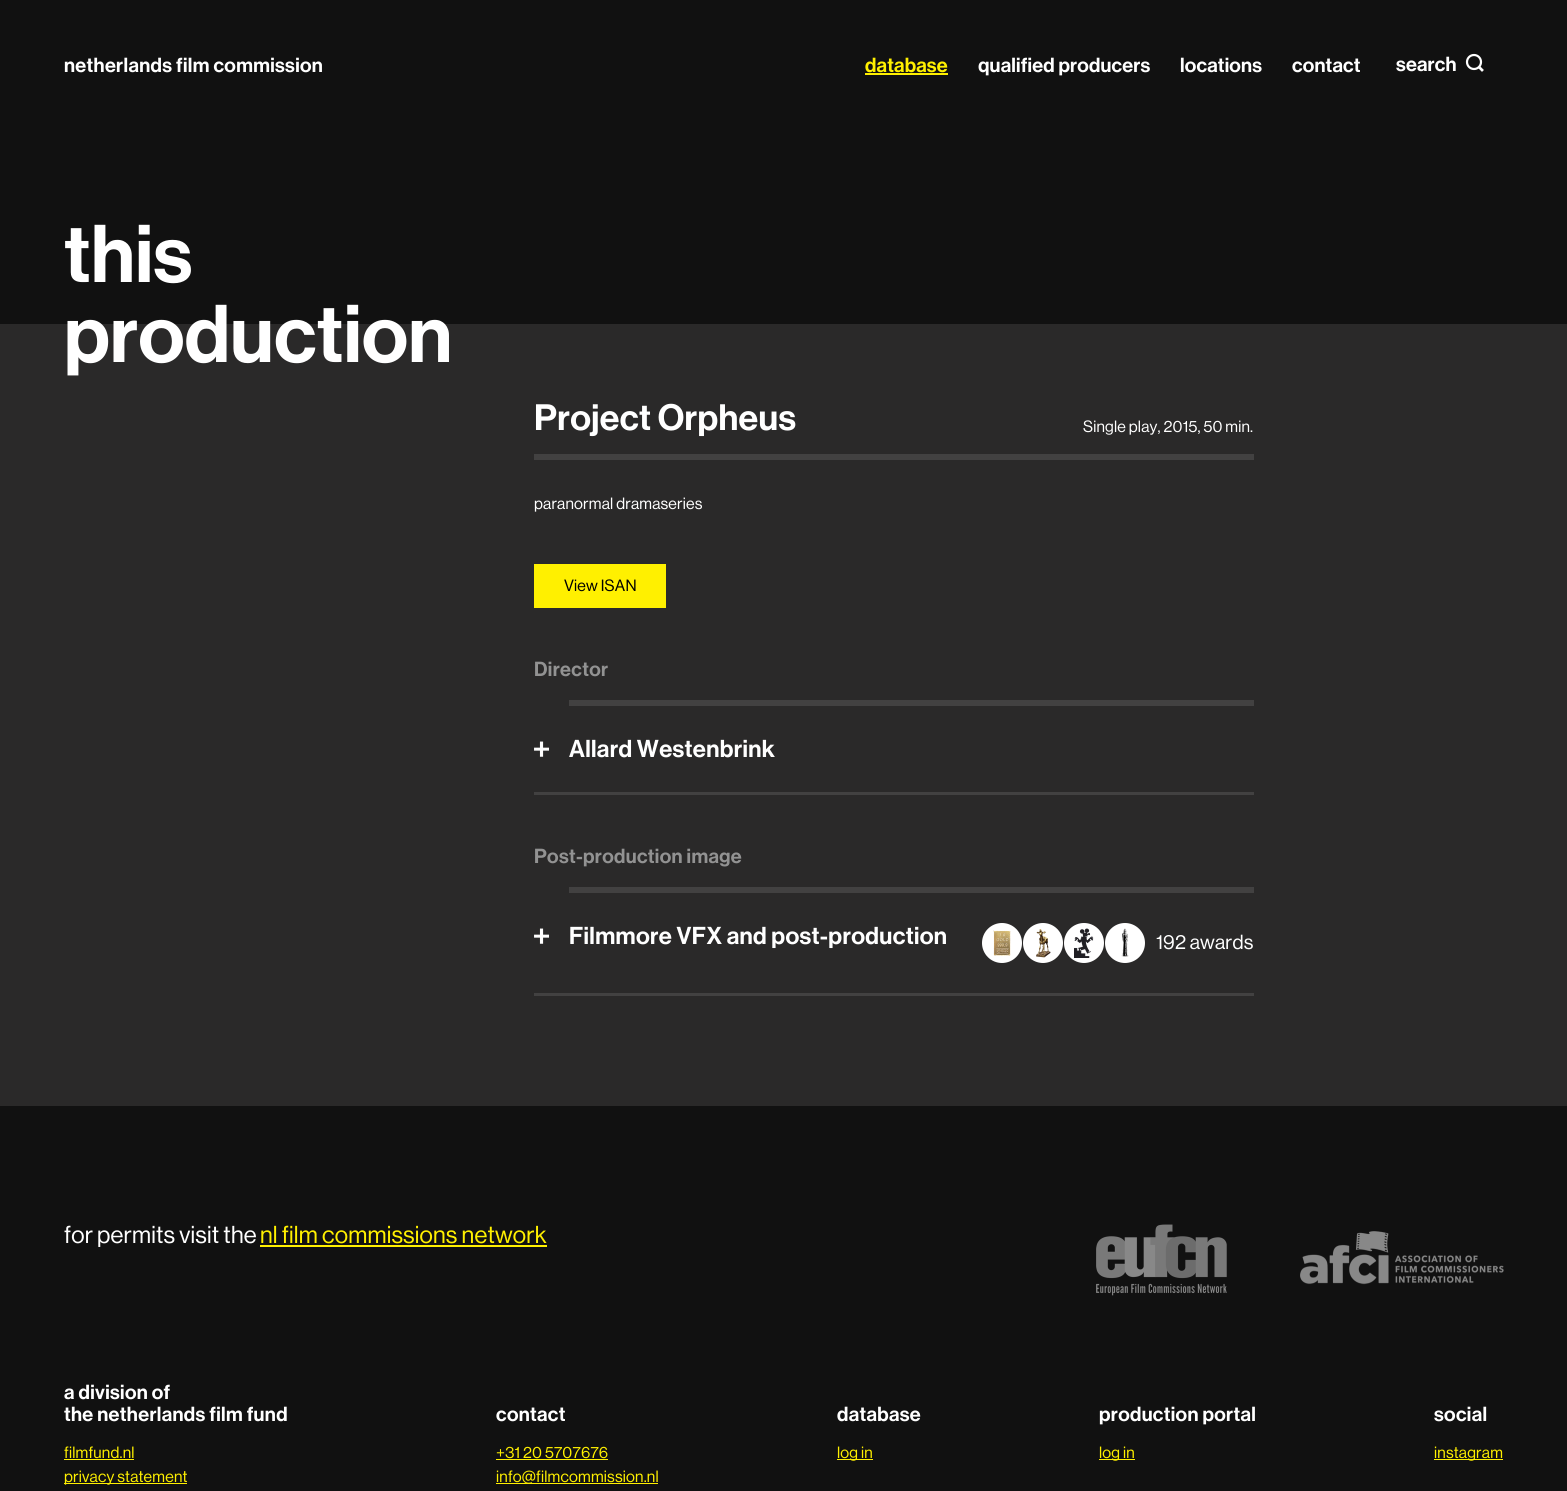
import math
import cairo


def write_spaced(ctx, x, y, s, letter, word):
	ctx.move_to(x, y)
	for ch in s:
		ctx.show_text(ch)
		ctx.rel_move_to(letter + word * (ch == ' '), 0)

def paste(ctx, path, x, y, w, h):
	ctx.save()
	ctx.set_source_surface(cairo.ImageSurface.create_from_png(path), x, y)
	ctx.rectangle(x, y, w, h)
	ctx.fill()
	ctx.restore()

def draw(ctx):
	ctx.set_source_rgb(0.067, 0.067, 0.067)
	ctx.paint()
	ctx.select_font_face('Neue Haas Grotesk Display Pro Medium')
	ctx.set_font_size(20)
	ctx.set_source_rgb(1, 1, 1)
	write_spaced(ctx, 64, 72, 'netherlands film commission', 0.35, 0)
	ctx.set_source_rgb(1, 0.941, 0)
	write_spaced(ctx, 865, 72, 'database', 0.2, 0)
	ctx.rectangle(865, 73, 83, 2)
	ctx.fill()
	ctx.set_source_rgb(1, 1, 1)
	for x, y, s in [
		(978, 72, 'qualified producers'),
		(1180, 72, 'locations'),
		(1292, 72, 'contact'),
		(1396, 71, 'search'),
	]:
		write_spaced(ctx, x, y, s, 0.2, 0)
	ctx.new_path()
	ctx.arc(1474, 62, 7, 0, 2 * math.pi)
	ctx.set_line_width(2.2)
	ctx.stroke()
	ctx.new_path()
	ctx.move_to(1479.5, 67.5)
	ctx.line_to(1482, 70)
	ctx.set_line_width(2.7)
	ctx.set_line_cap(cairo.LINE_CAP_SQUARE)
	ctx.stroke()
	ctx.set_font_size(80)
	write_spaced(ctx, 64, 282, 'this', 0.35, 0)
	ctx.set_source_rgb(0.165, 0.161, 0.161)
	ctx.rectangle(0, 324, 1567, 782)
	ctx.fill()
	ctx.set_source_rgb(1, 1, 1)
	write_spaced(ctx, 64, 362, 'production', 0.35, 0)
	ctx.set_source_rgb(0.259, 0.255, 0.255)
	ctx.rectangle(534, 454, 720, 6)
	ctx.fill()
	ctx.set_font_size(36)
	ctx.set_source_rgb(1, 1, 1)
	write_spaced(ctx, 534, 430, 'Project Orpheus', 0.35, 0)
	ctx.select_font_face('Neue Haas Grotesk Display Pro')
	ctx.set_font_size(16)
	write_spaced(ctx, 1083, 432, 'Single play, 2015, 50 min.', 0.2, 0)
	write_spaced(ctx, 534, 509, 'paranormal dramaseries', 0.2, 0)
	ctx.set_source_rgb(1, 0.941, 0)
	ctx.rectangle(534, 564, 132, 44)
	ctx.fill()
	ctx.set_source_rgb(0, 0, 0)
	write_spaced(ctx, 564, 591, 'View ISAN', 0.2, 0)
	ctx.select_font_face('Neue Haas Grotesk Display Pro Medium')
	ctx.set_font_size(20)
	ctx.set_source_rgb(0.573, 0.573, 0.573)
	write_spaced(ctx, 534, 676, 'Director', 0.35, 0)
	ctx.set_source_rgb(0.259, 0.255, 0.255)
	ctx.rectangle(534, 792, 720, 3)
	ctx.fill()
	ctx.rectangle(569, 700, 685, 6)
	ctx.fill()
	ctx.set_font_size(30)
	ctx.set_source_rgb(1, 1, 1)
	write_spaced(ctx, 533, 759, '+', 0.2, 0)
	ctx.set_font_size(24)
	write_spaced(ctx, 569, 757, 'Allard Westenbrink', 0.35, 0)
	ctx.set_font_size(20)
	ctx.set_source_rgb(0.573, 0.573, 0.573)
	write_spaced(ctx, 534, 863, 'Post-production image', 0.35, 0)
	ctx.set_source_rgb(0.259, 0.255, 0.255)
	ctx.rectangle(534, 993, 720, 3)
	ctx.fill()
	ctx.rectangle(569, 887, 685, 6)
	ctx.fill()
	ctx.set_font_size(30)
	ctx.set_source_rgb(1, 1, 1)
	write_spaced(ctx, 533, 946, '+', 0.2, 0)
	ctx.set_font_size(24)
	write_spaced(ctx, 569, 944, 'Filmmore VFX and post-production', 0.35, 0)
	ctx.new_path()
	ctx.arc(1002, 943, 20, 0, 2 * math.pi)
	ctx.fill()
	paste(ctx, 'media/1.png', 993, 930, 18, 26)
	ctx.arc(1043, 943, 20, 0, 2 * math.pi)
	ctx.fill()
	paste(ctx, 'media/2.png', 1036, 929, 15, 29)
	ctx.arc(1084, 943, 20, 0, 2 * math.pi)
	ctx.fill()
	paste(ctx, 'media/3.png', 1074, 928, 20, 30)
	ctx.arc(1125, 943, 20, 0, 2 * math.pi)
	ctx.fill()
	paste(ctx, 'media/4.png', 1121, 928, 8, 29)
	ctx.select_font_face('Neue Haas Grotesk Display Pro')
	ctx.set_font_size(20)
	write_spaced(ctx, 1156, 949, '192 awards', 0.2, 0)
	ctx.set_font_size(24)
	write_spaced(ctx, 64, 1243, 'for permits visit the', 0.2, 0)
	ctx.set_source_rgb(1, 0.941, 0)
	write_spaced(ctx, 260, 1243, 'nl film commissions network', 0.2, 0)
	ctx.rectangle(260, 1245, 287, 2)
	ctx.fill()
	paste(ctx, 'media/5.png', 1096, 1224, 131, 72)
	paste(ctx, 'media/6.png', 1300, 1231, 204, 54)
	ctx.select_font_face('Neue Haas Grotesk Display Pro Medium')
	ctx.set_font_size(20)
	ctx.set_source_rgb(1, 1, 1)
	write_spaced(ctx, 64, 1399, 'a division of', 0.35, 0)
	write_spaced(ctx, 64, 1421, 'the netherlands film fund', 0.35, 0)
	ctx.select_font_face('Neue Haas Grotesk Display Pro')
	ctx.set_font_size(16)
	ctx.set_source_rgb(1, 0.941, 0)
	write_spaced(ctx, 64, 1458, 'filmfund.nl', 0.2, 0)
	ctx.rectangle(64, 1459, 70, 1)
	ctx.fill()
	ctx.rectangle(64, 1483, 123, 1)
	ctx.fill()
	write_spaced(ctx, 64, 1482, 'privacy statement', 0.2, 0)
	ctx.select_font_face('Neue Haas Grotesk Display Pro Medium')
	ctx.set_font_size(20)
	ctx.set_source_rgb(1, 1, 1)
	write_spaced(ctx, 496, 1421, 'contact', 0.35, 0)
	ctx.select_font_face('Neue Haas Grotesk Display Pro')
	ctx.set_font_size(16)
	ctx.set_source_rgb(1, 0.941, 0)
	write_spaced(ctx, 496, 1458, '+31 20 5707676', 0.2, 0)
	ctx.rectangle(496, 1459, 112, 1)
	ctx.fill()
	ctx.rectangle(496, 1483, 162, 1)
	ctx.fill()
	write_spaced(ctx, 496, 1482, 'info@filmcommission.nl', 0.2, 0)
	ctx.select_font_face('Neue Haas Grotesk Display Pro Medium')
	ctx.set_font_size(20)
	ctx.set_source_rgb(1, 1, 1)
	write_spaced(ctx, 837, 1421, 'database', 0.35, 0)
	ctx.set_source_rgb(1, 0.941, 0)
	ctx.rectangle(837, 1459, 36, 1)
	ctx.fill()
	ctx.select_font_face('Neue Haas Grotesk Display Pro')
	ctx.set_font_size(16)
	write_spaced(ctx, 837, 1458, 'log in', 0.2, 0)
	ctx.select_font_face('Neue Haas Grotesk Display Pro Medium')
	ctx.set_font_size(20)
	ctx.set_source_rgb(1, 1, 1)
	write_spaced(ctx, 1099, 1421, 'production portal', 0.35, 0)
	ctx.set_source_rgb(1, 0.941, 0)
	ctx.rectangle(1099, 1459, 36, 1)
	ctx.fill()
	ctx.select_font_face('Neue Haas Grotesk Display Pro')
	ctx.set_font_size(16)
	write_spaced(ctx, 1099, 1458, 'log in', 0.2, 0)
	ctx.select_font_face('Neue Haas Grotesk Display Pro Medium')
	ctx.set_font_size(20)
	ctx.set_source_rgb(1, 1, 1)
	write_spaced(ctx, 1434, 1421, 'social', 0.35, 0)
	ctx.set_source_rgb(1, 0.941, 0)
	ctx.rectangle(1434, 1459, 69, 1)
	ctx.fill()
	ctx.select_font_face('Neue Haas Grotesk Display Pro')
	ctx.set_font_size(16)
	write_spaced(ctx, 1434, 1458, 'instagram', 0.2, 0)


surface = cairo.ImageSurface(cairo.FORMAT_RGB24, 1567, 1491)
ctx = cairo.Context(surface)
options = cairo.FontOptions()
options.set_hint_metrics(cairo.HINT_METRICS_OFF)
options.set_hint_style(cairo.HINT_STYLE_NONE)
ctx.set_font_options(options)
ctx.set_miter_limit(4)
draw(ctx)
surface.write_to_png('image.png')
